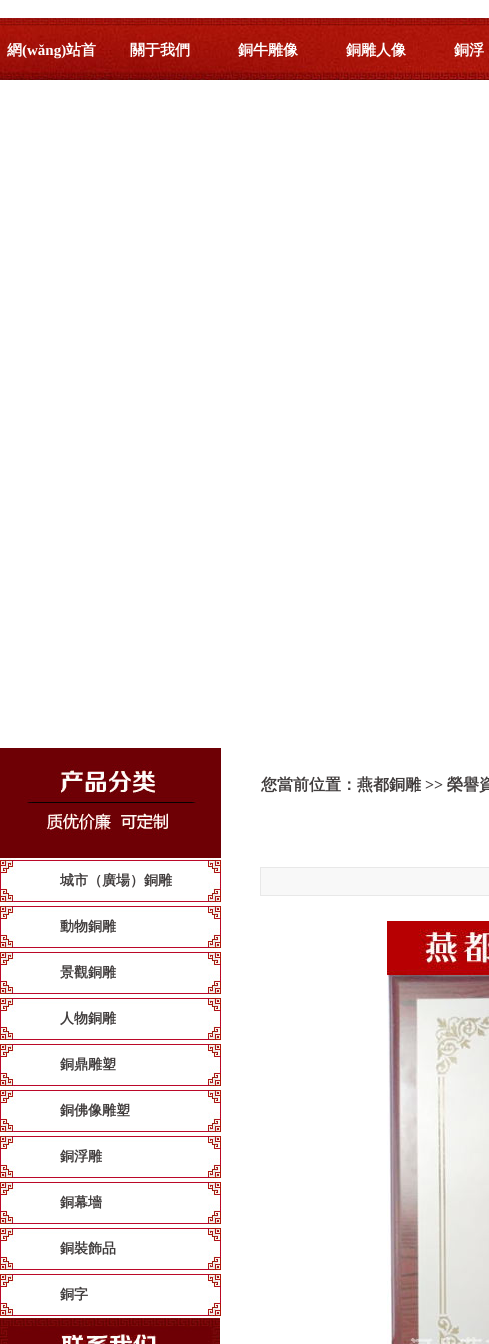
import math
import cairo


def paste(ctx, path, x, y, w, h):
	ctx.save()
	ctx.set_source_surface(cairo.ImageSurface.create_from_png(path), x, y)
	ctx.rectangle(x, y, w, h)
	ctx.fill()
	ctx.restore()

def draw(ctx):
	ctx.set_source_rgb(1, 1, 1)
	ctx.paint()
	paste(ctx, 'media/1.png', 0, 18, 489, 62)
	ctx.select_font_face('WenQuanYi Zen Hei', cairo.FONT_SLANT_NORMAL, cairo.FONT_WEIGHT_BOLD)
	ctx.set_font_size(15)
	ctx.set_source_rgb(1, 1, 1)
	ctx.move_to(7, 55)
	ctx.show_text('網')
	ctx.select_font_face('Liberation Serif', cairo.FONT_SLANT_NORMAL, cairo.FONT_WEIGHT_BOLD)
	ctx.move_to(22, 55)
	ctx.show_text('(wǎng)')
	ctx.select_font_face('WenQuanYi Zen Hei', cairo.FONT_SLANT_NORMAL, cairo.FONT_WEIGHT_BOLD)
	for x, y, s in [
		(66, 55, '站首'),
		(130, 55, '關于我們'),
		(238, 55, '銅牛雕像'),
		(346, 55, '銅雕人像'),
		(454, 55, '銅浮'),
	]:
		ctx.move_to(x, y)
		ctx.show_text(s)
	ctx.set_font_size(16)
	ctx.set_source_rgb(0.255, 0.239, 0.239)
	ctx.move_to(261, 790)
	ctx.show_text('您當前位置：燕都銅雕')
	ctx.select_font_face('Liberation Serif', cairo.FONT_SLANT_NORMAL, cairo.FONT_WEIGHT_BOLD)
	ctx.move_to(425, 790)
	ctx.show_text('>>')
	ctx.select_font_face('WenQuanYi Zen Hei', cairo.FONT_SLANT_NORMAL, cairo.FONT_WEIGHT_BOLD)
	ctx.move_to(447, 790)
	ctx.show_text('榮譽資')
	ctx.set_source_rgb(0.969, 0.969, 0.969)
	ctx.rectangle(260.5, 867.5, 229, 28)
	ctx.fill_preserve()
	ctx.set_source_rgb(0.91, 0.91, 0.91)
	ctx.set_line_width(1)
	ctx.stroke()
	paste(ctx, 'media/2.png', 387, 921, 102, 423)
	paste(ctx, 'media/3.png', 0, 748, 221, 110)
	paste(ctx, 'media/4.png', 0, 858, 221, 46)
	ctx.set_font_size(14)
	ctx.set_source_rgb(0.255, 0.239, 0.239)
	ctx.move_to(60, 885)
	ctx.show_text('城市（廣場）銅雕')
	paste(ctx, 'media/4.png', 0, 904, 221, 46)
	ctx.move_to(60, 931)
	ctx.show_text('動物銅雕')
	paste(ctx, 'media/4.png', 0, 950, 221, 46)
	ctx.move_to(60, 977)
	ctx.show_text('景觀銅雕')
	paste(ctx, 'media/4.png', 0, 996, 221, 46)
	ctx.move_to(60, 1023)
	ctx.show_text('人物銅雕')
	paste(ctx, 'media/4.png', 0, 1042, 221, 46)
	ctx.move_to(60, 1069)
	ctx.show_text('銅鼎雕塑')
	paste(ctx, 'media/4.png', 0, 1088, 221, 46)
	ctx.move_to(60, 1115)
	ctx.show_text('銅佛像雕塑')
	paste(ctx, 'media/4.png', 0, 1134, 221, 46)
	ctx.move_to(60, 1161)
	ctx.show_text('銅浮雕')
	paste(ctx, 'media/4.png', 0, 1180, 221, 46)
	ctx.move_to(60, 1207)
	ctx.show_text('銅幕墻')
	paste(ctx, 'media/4.png', 0, 1226, 221, 46)
	ctx.move_to(60, 1253)
	ctx.show_text('銅裝飾品')
	paste(ctx, 'media/4.png', 0, 1272, 221, 46)
	ctx.move_to(60, 1299)
	ctx.show_text('銅字')
	paste(ctx, 'media/5.png', 0, 1318, 220, 26)


surface = cairo.ImageSurface(cairo.FORMAT_RGB24, 489, 1344)
ctx = cairo.Context(surface)
options = cairo.FontOptions()
options.set_hint_metrics(cairo.HINT_METRICS_OFF)
options.set_hint_style(cairo.HINT_STYLE_NONE)
ctx.set_font_options(options)
ctx.set_miter_limit(4)
draw(ctx)
surface.write_to_png('image.png')
